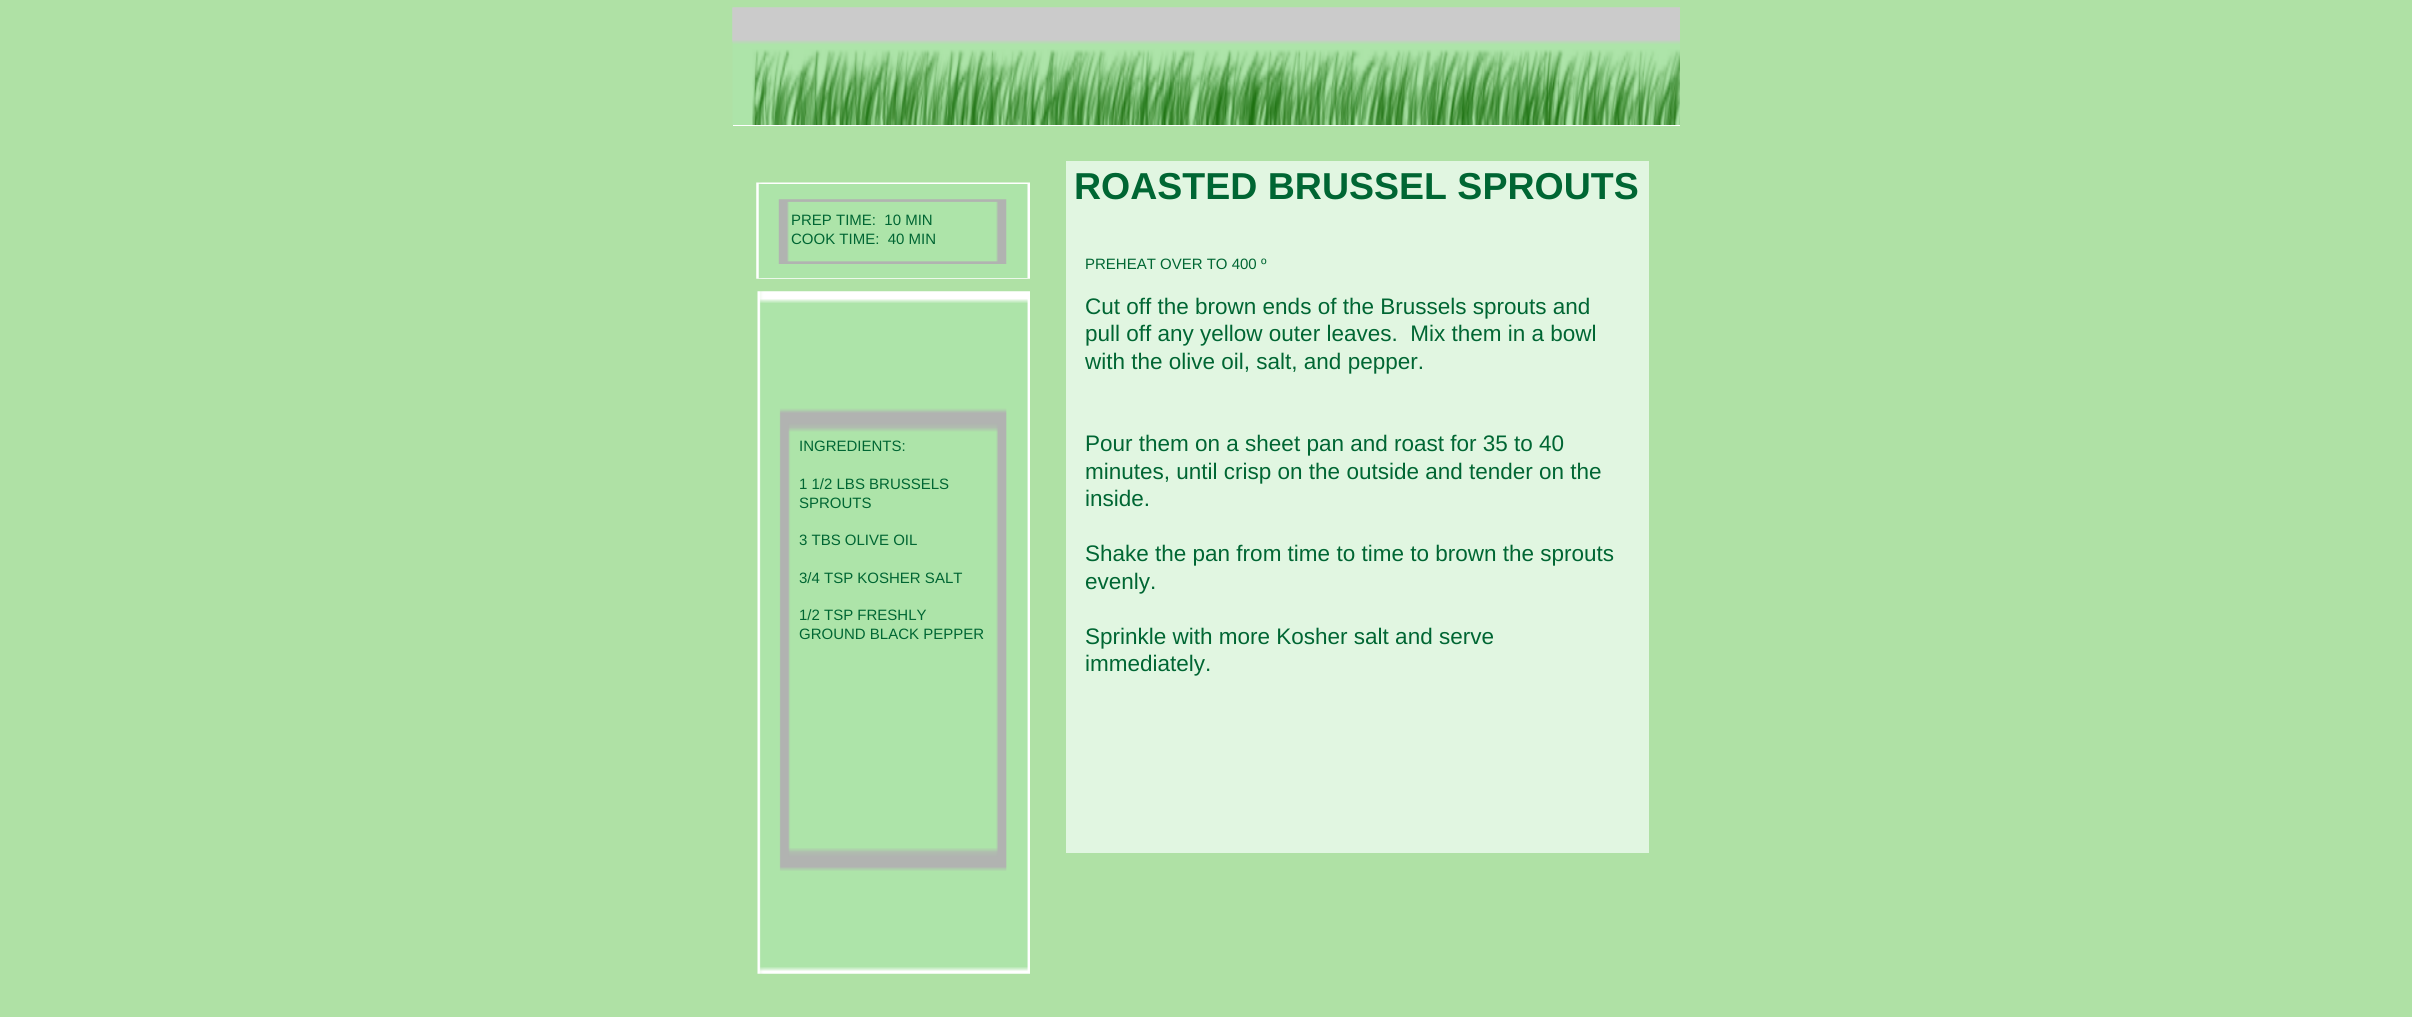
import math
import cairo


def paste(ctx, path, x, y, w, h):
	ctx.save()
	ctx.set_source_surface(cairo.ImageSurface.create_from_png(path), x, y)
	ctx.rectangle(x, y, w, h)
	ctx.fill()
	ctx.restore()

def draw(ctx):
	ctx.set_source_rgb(0.686, 0.882, 0.647)
	ctx.paint()
	paste(ctx, 'media/1.png', 732, 7, 948, 118)
	paste(ctx, 'media/2.png', 732, 7, 948, 35)
	ctx.set_source_rgb(1, 1, 1)
	ctx.rectangle(733, 125, 947, 1)
	ctx.fill()
	ctx.set_source_rgb(0.882, 0.961, 0.882)
	ctx.rectangle(1066, 161, 583, 692)
	ctx.fill()
	paste(ctx, 'media/3.png', 756, 182, 274, 97)
	ctx.select_font_face('Liberation Sans', cairo.FONT_SLANT_NORMAL, cairo.FONT_WEIGHT_BOLD)
	ctx.set_font_size(37.5)
	ctx.set_source_rgb(0, 0.4, 0.2)
	ctx.move_to(1074, 199)
	ctx.show_text('ROASTED BRUSSEL SPROUTS')
	ctx.select_font_face('Liberation Sans')
	ctx.set_font_size(15)
	ctx.move_to(791, 225)
	ctx.show_text('PREP TIME:  10 MIN')
	ctx.move_to(791, 244)
	ctx.show_text('COOK TIME:  40 MIN')
	paste(ctx, 'media/4.png', 757, 291, 273, 683)
	ctx.move_to(1085, 269)
	ctx.show_text('PREHEAT OVER TO 400 º')
	ctx.set_font_size(22.5)
	for x, y, s in [
		(1085, 314, 'Cut off the brown ends of the Brussels sprouts and'),
		(1085, 341, 'pull off any yellow outer leaves.  Mix them in a bowl'),
		(1085, 369, 'with the olive oil, salt, and pepper.'),
		(1085, 451, 'Pour them on a sheet pan and roast for 35 to 40'),
		(1085, 479, 'minutes, until crisp on the outside and tender on the'),
		(1085, 506, 'inside.'),
		(1085, 561, 'Shake the pan from time to time to brown the sprouts'),
		(1085, 589, 'evenly.'),
		(1085, 644, 'Sprinkle with more Kosher salt and serve'),
		(1085, 671, 'immediately.'),
	]:
		ctx.move_to(x, y)
		ctx.show_text(s)
	ctx.set_font_size(15)
	for x, y, s in [
		(799, 451, 'INGREDIENTS:'),
		(799, 489, '1 1/2 LBS BRUSSELS'),
		(799, 508, 'SPROUTS'),
		(799, 545, '3 TBS OLIVE OIL'),
		(799, 583, '3/4 TSP KOSHER SALT'),
		(799, 620, '1/2 TSP FRESHLY'),
		(799, 639, 'GROUND BLACK PEPPER'),
	]:
		ctx.move_to(x, y)
		ctx.show_text(s)


surface = cairo.ImageSurface(cairo.FORMAT_RGB24, 2412, 1017)
ctx = cairo.Context(surface)
options = cairo.FontOptions()
options.set_hint_metrics(cairo.HINT_METRICS_OFF)
options.set_hint_style(cairo.HINT_STYLE_NONE)
ctx.set_font_options(options)
ctx.set_miter_limit(4)
draw(ctx)
surface.write_to_png('image.png')
